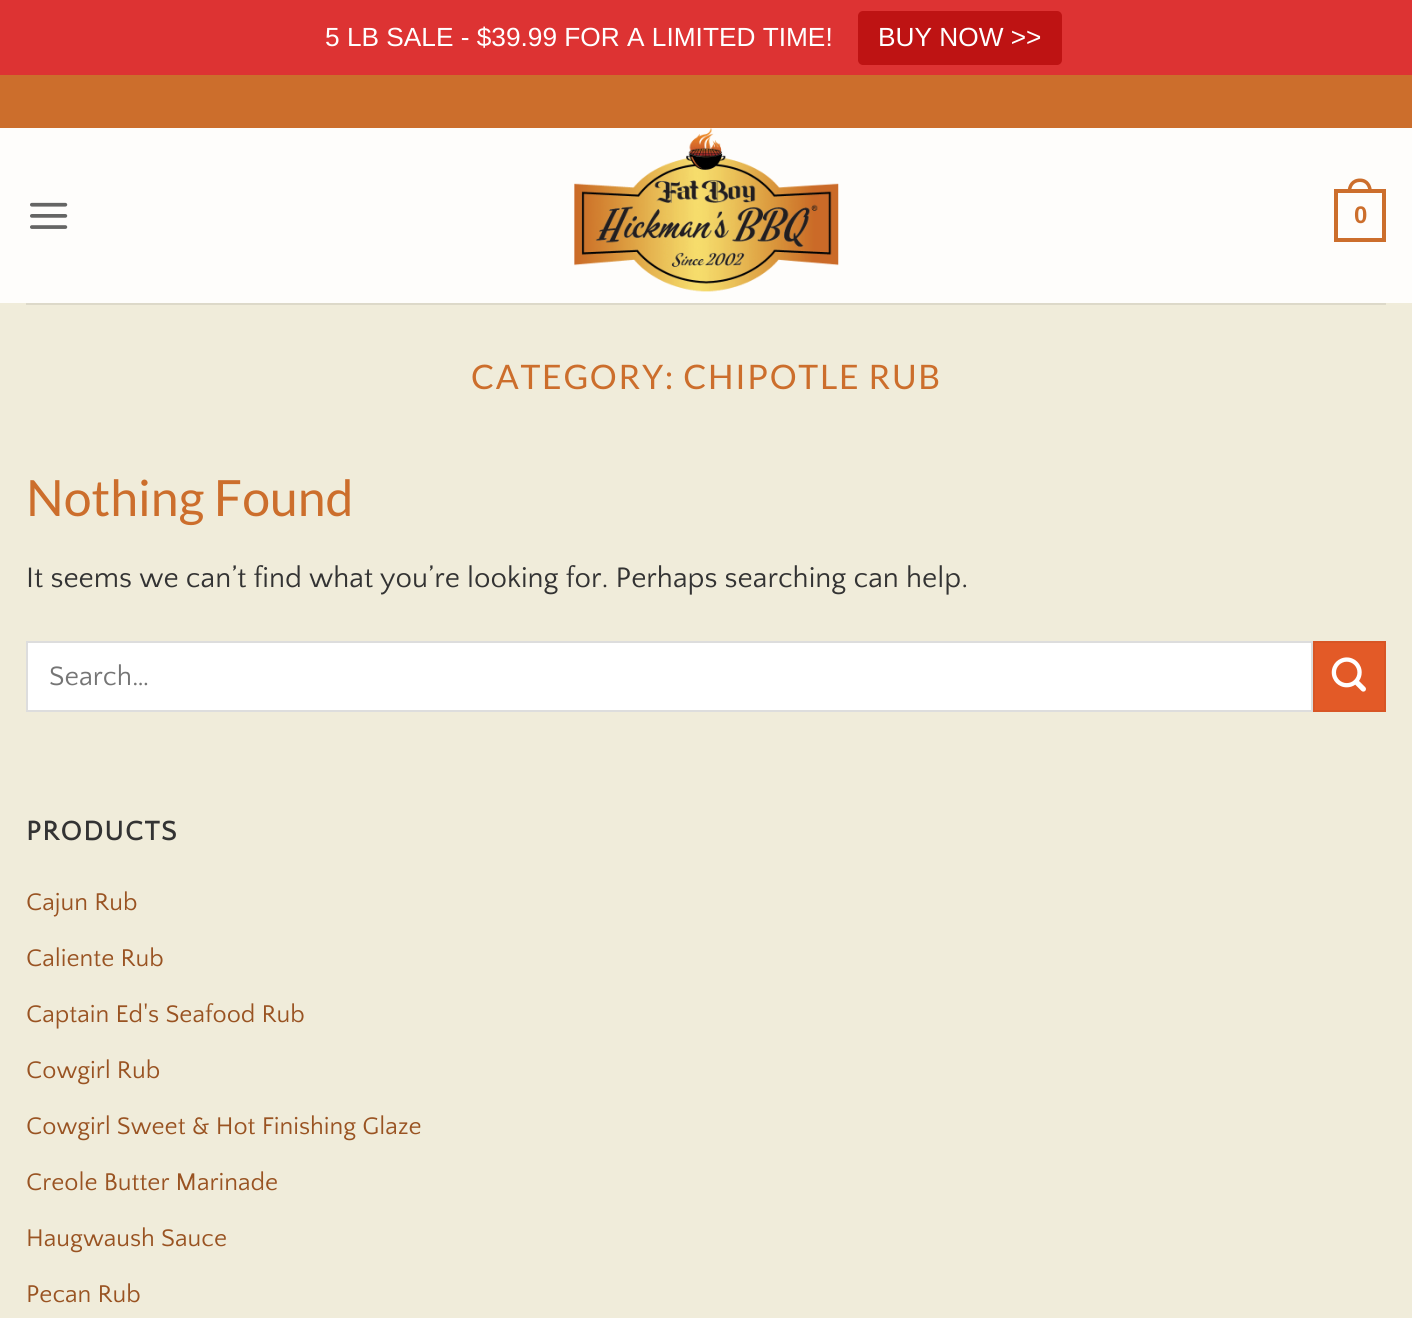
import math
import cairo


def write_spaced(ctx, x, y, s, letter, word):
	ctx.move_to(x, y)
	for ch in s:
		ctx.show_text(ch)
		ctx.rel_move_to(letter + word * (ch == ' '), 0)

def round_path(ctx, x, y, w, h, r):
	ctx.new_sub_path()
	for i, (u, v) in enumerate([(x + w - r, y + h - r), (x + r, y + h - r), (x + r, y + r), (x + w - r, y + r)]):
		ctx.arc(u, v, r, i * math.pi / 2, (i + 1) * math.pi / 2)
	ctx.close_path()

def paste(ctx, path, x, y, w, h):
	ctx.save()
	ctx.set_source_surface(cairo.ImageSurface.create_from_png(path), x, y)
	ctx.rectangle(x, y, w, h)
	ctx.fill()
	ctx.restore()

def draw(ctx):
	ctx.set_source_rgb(0.941, 0.922, 0.855)
	ctx.paint()
	ctx.set_source_rgb(0.867, 0.2, 0.2)
	ctx.rectangle(0, 0, 1412, 75)
	ctx.fill()
	ctx.select_font_face('Liberation Sans')
	ctx.set_font_size(26.25)
	ctx.set_source_rgb(1, 1, 1)
	ctx.move_to(325, 46)
	ctx.show_text('5 LB SALE - $39.99 FOR A LIMITED TIME!')
	ctx.set_source_rgb(0.745, 0.078, 0.078)
	round_path(ctx, 858, 11, 204, 54, 5)
	ctx.fill()
	ctx.set_source_rgb(1, 1, 1)
	ctx.move_to(878, 46)
	ctx.show_text('BUY NOW >>')
	ctx.set_source_rgb(0.8, 0.431, 0.173)
	ctx.rectangle(0, 75, 1412, 53)
	ctx.fill()
	ctx.set_source_rgb(0.996, 0.992, 0.984)
	ctx.rectangle(0, 128, 1412, 175)
	ctx.fill()
	paste(ctx, 'media/1.png', 30, 202, 38, 27)
	paste(ctx, 'media/2.png', 574, 128, 265, 164)
	ctx.rectangle(1336, 191, 48, 49)
	ctx.set_source_rgb(0.8, 0.431, 0.173)
	ctx.set_line_width(4)
	ctx.stroke()
	ctx.set_fill_rule(cairo.FILL_RULE_EVEN_ODD)
	ctx.new_path()
	ctx.move_to(1360, 178.5)
	ctx.curve_to(1368, 178.5, 1372, 185, 1372, 192.5)
	ctx.line_to(1347.5, 192.5)
	ctx.curve_to(1347.5, 185, 1351.5, 178.5, 1360, 178.5)
	ctx.close_path()
	ctx.move_to(1360, 182)
	ctx.curve_to(1366, 182, 1368.5, 187, 1368.5, 192.5)
	ctx.line_to(1351, 192.5)
	ctx.curve_to(1351, 187, 1353.5, 182, 1360, 182)
	ctx.close_path()
	ctx.fill()
	ctx.select_font_face('Liberation Sans', cairo.FONT_SLANT_NORMAL, cairo.FONT_WEIGHT_BOLD)
	ctx.set_font_size(24)
	ctx.move_to(1354, 223)
	ctx.show_text('0')
	ctx.set_source_rgb(0.867, 0.851, 0.788)
	ctx.rectangle(26, 303, 1360, 2)
	ctx.fill()
	ctx.select_font_face('Lato')
	ctx.set_font_size(33.75)
	ctx.set_source_rgb(0.8, 0.431, 0.173)
	write_spaced(ctx, 471, 389, 'CATEGORY: CHIPOTLE RUB', 1.7, 0)
	ctx.set_font_size(50)
	ctx.move_to(26, 516)
	ctx.show_text('Nothing Found')
	ctx.select_font_face('Quattrocento Sans')
	ctx.set_font_size(29.4)
	ctx.set_source_rgb(0.2, 0.2, 0.2)
	ctx.move_to(26, 587)
	ctx.show_text('It seems we can’t find what you’re looking for. Perhaps searching can help.')
	ctx.set_source_rgb(1, 1, 1)
	ctx.rectangle(27, 642, 1285, 69)
	ctx.fill_preserve()
	ctx.set_source_rgb(0.867, 0.867, 0.867)
	ctx.set_line_width(2)
	ctx.stroke()
	ctx.set_font_size(28)
	ctx.set_source_rgb(0.459, 0.459, 0.459)
	ctx.move_to(49, 685)
	ctx.show_text('Search…')
	ctx.set_source_rgb(0.89, 0.353, 0.153)
	ctx.rectangle(1314, 642, 71, 69)
	ctx.fill_preserve()
	ctx.set_source_rgb(0.847, 0.337, 0.145)
	ctx.stroke()
	paste(ctx, 'media/3.png', 1331, 657, 35, 35)
	ctx.select_font_face('Quattrocento Sans', cairo.FONT_SLANT_NORMAL, cairo.FONT_WEIGHT_BOLD)
	ctx.set_source_rgb(0.2, 0.2, 0.2)
	write_spaced(ctx, 26, 840, 'PRODUCTS', 1.5, 0)
	ctx.select_font_face('Quattrocento Sans')
	ctx.set_font_size(25.25)
	ctx.set_source_rgb(0.6, 0.325, 0.133)
	for x, y, s in [
		(26, 910, 'Cajun Rub'),
		(26, 966, 'Caliente Rub'),
		(26, 1022, 'Captain Ed\'s Seafood Rub'),
		(26, 1078, 'Cowgirl Rub'),
		(26, 1134, 'Cowgirl Sweet & Hot Finishing Glaze'),
		(26, 1190, 'Creole Butter Marinade'),
		(26, 1246, 'Haugwaush Sauce'),
		(26, 1302, 'Pecan Rub'),
	]:
		ctx.move_to(x, y)
		ctx.show_text(s)


surface = cairo.ImageSurface(cairo.FORMAT_RGB24, 1412, 1318)
ctx = cairo.Context(surface)
options = cairo.FontOptions()
options.set_hint_metrics(cairo.HINT_METRICS_OFF)
options.set_hint_style(cairo.HINT_STYLE_NONE)
ctx.set_font_options(options)
ctx.set_miter_limit(4)
draw(ctx)
surface.write_to_png('image.png')
